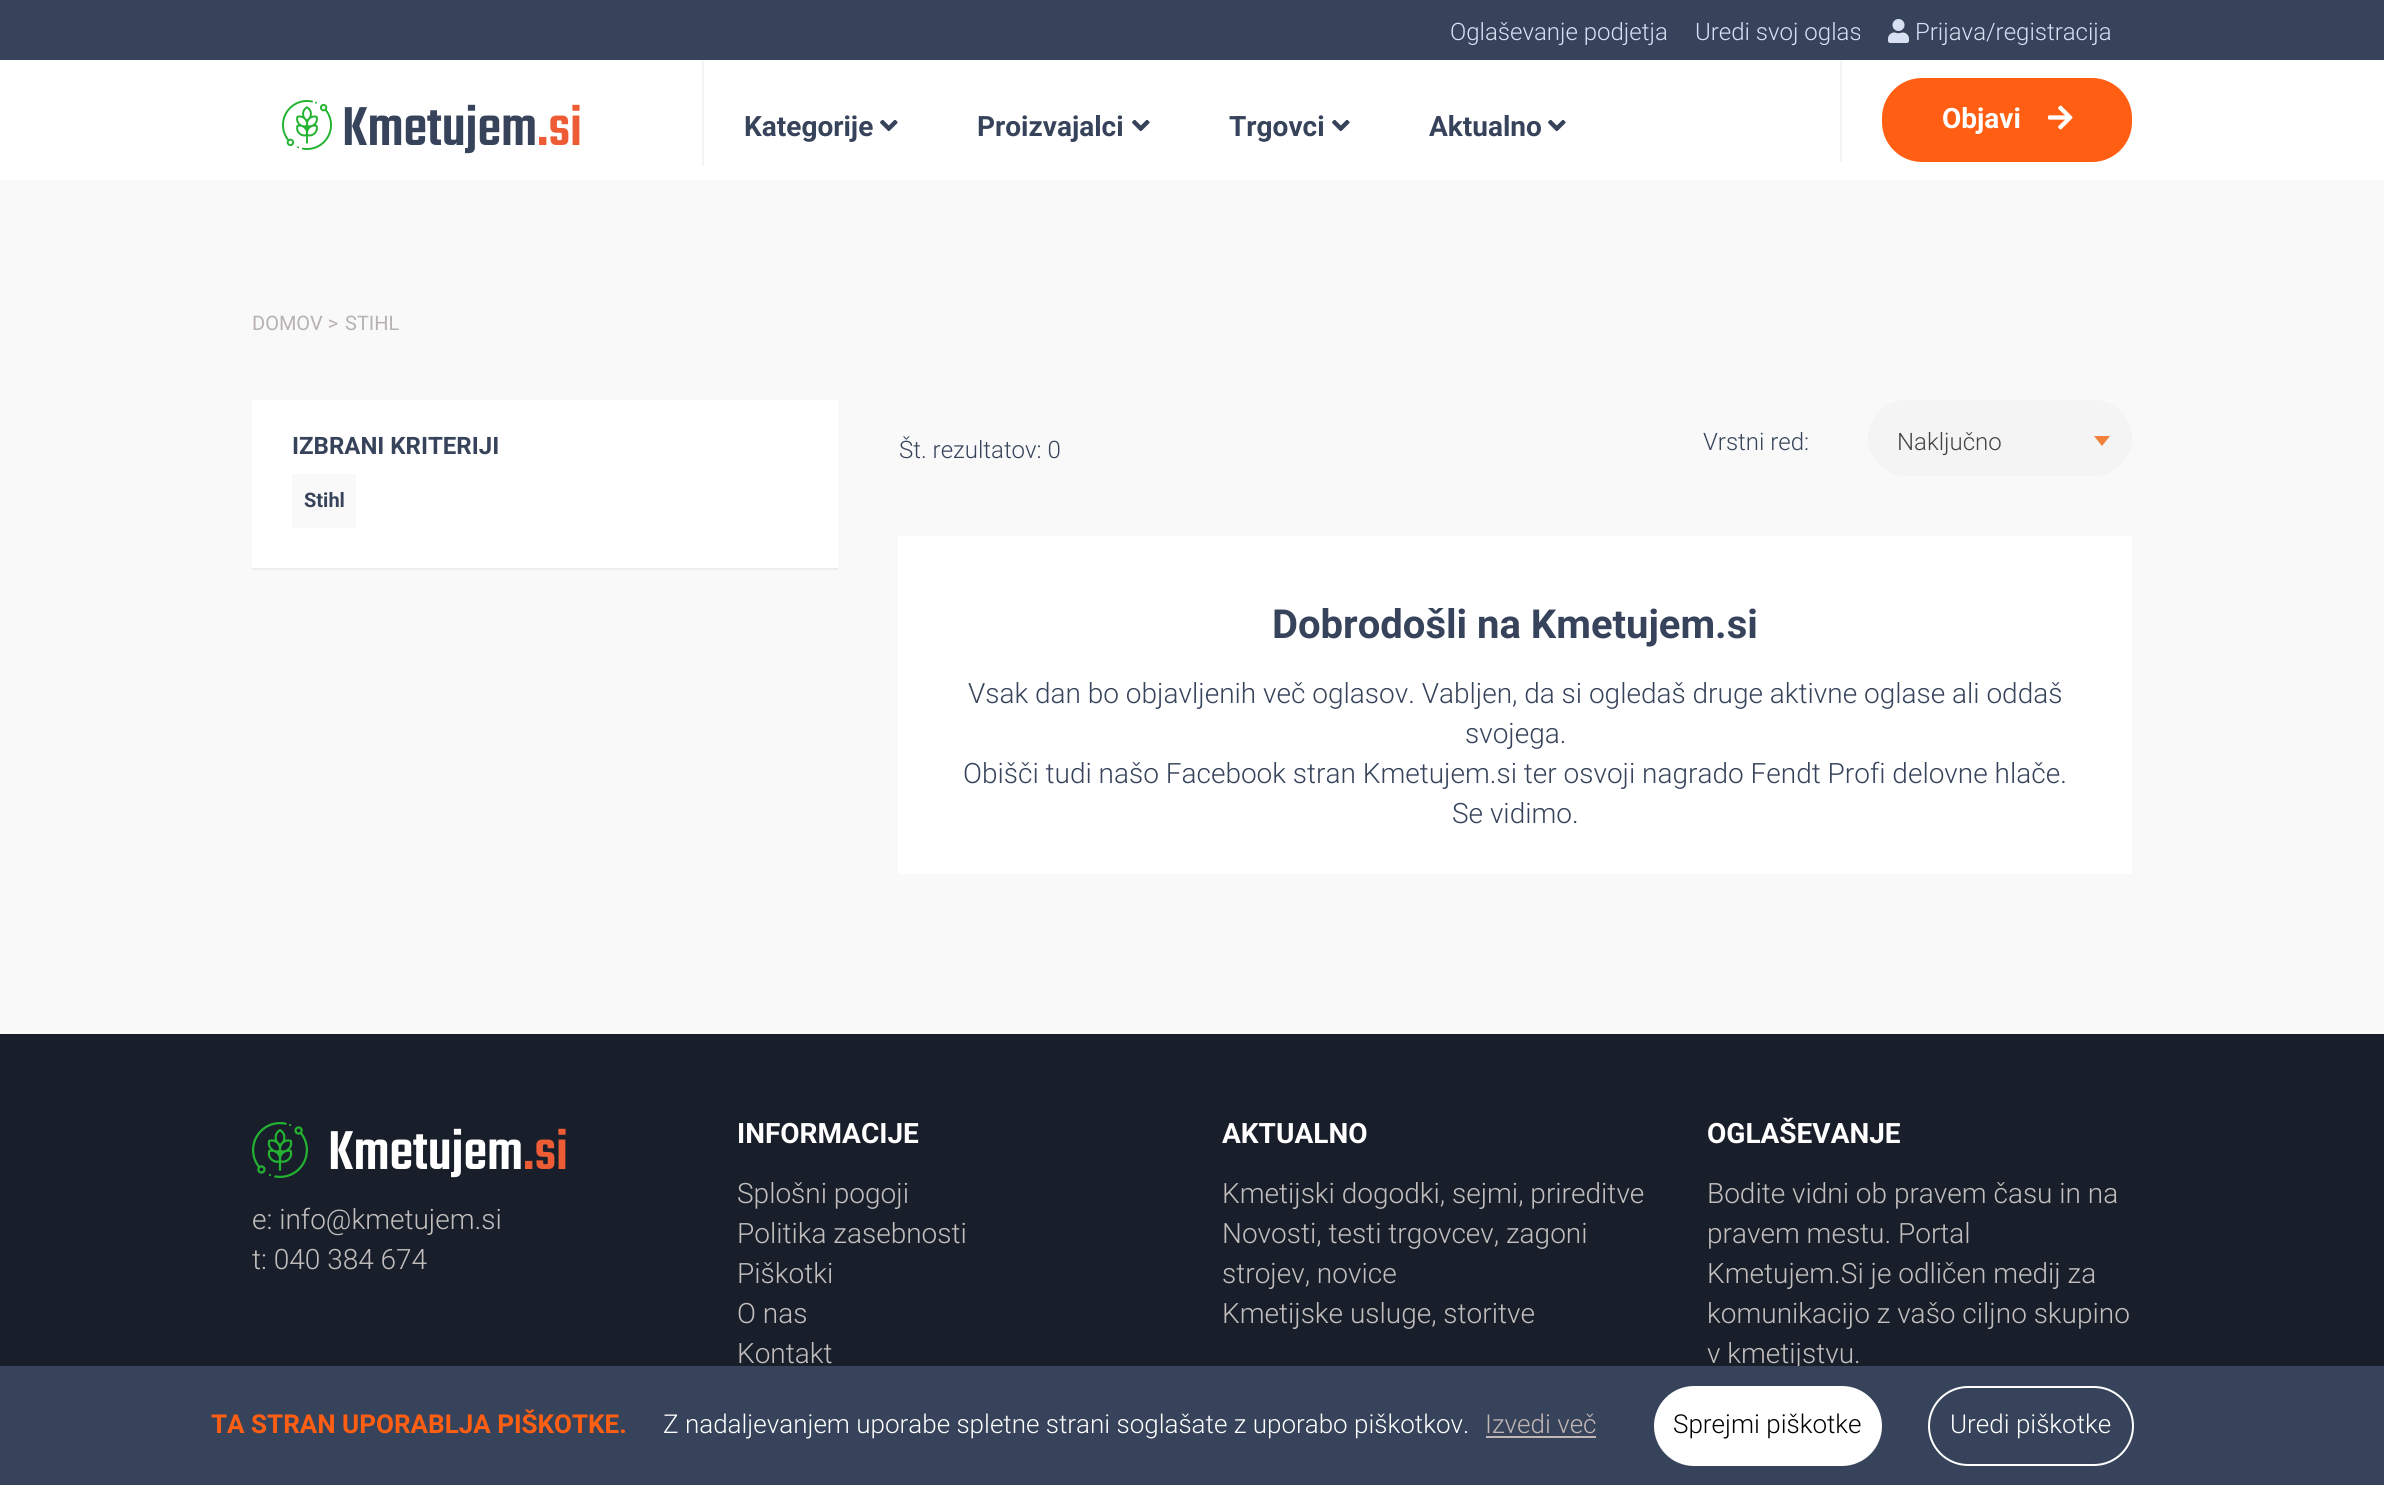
import math
import cairo


def round_path(ctx, x, y, w, h, r):
	ctx.new_sub_path()
	for i, (u, v) in enumerate([(x + w - r, y + h - r), (x + r, y + h - r), (x + r, y + r), (x + w - r, y + r)]):
		ctx.arc(u, v, r, i * math.pi / 2, (i + 1) * math.pi / 2)
	ctx.close_path()

def paste(ctx, path, x, y, w, h):
	ctx.save()
	ctx.set_source_surface(cairo.ImageSurface.create_from_png(path), x, y)
	ctx.rectangle(x, y, w, h)
	ctx.fill()
	ctx.restore()

def draw(ctx):
	ctx.set_source_rgb(1, 1, 1)
	ctx.paint()
	ctx.set_source_rgb(0.212, 0.263, 0.353)
	ctx.rectangle(0, 0, 2384, 60)
	ctx.fill()
	ctx.select_font_face('Roboto Light')
	ctx.set_font_size(24)
	ctx.set_source_rgb(0.847, 0.878, 0.953)
	ctx.move_to(1450, 40)
	ctx.show_text('Oglaševanje podjetja')
	ctx.move_to(1695, 40)
	ctx.show_text('Uredi svoj oglas')
	paste(ctx, 'media/1.png', 1888, 19, 21, 24)
	ctx.move_to(1915, 40)
	ctx.show_text('Prijava/registracija')
	paste(ctx, 'media/2.png', 282, 100, 50, 50)
	ctx.select_font_face('Teko Light')
	ctx.set_font_size(60)
	ctx.set_source_rgb(0.212, 0.263, 0.353)
	ctx.move_to(342, 145)
	ctx.show_text('Kmetujem')
	ctx.set_source_rgb(0.933, 0.361, 0.212)
	ctx.move_to(537, 145)
	ctx.show_text('.si')
	ctx.set_source_rgb(0.957, 0.957, 0.957)
	ctx.rectangle(702, 60, 2, 106)
	ctx.fill()
	ctx.select_font_face('Roboto', cairo.FONT_SLANT_NORMAL, cairo.FONT_WEIGHT_BOLD)
	ctx.set_font_size(28)
	ctx.set_source_rgb(0.212, 0.263, 0.353)
	ctx.move_to(744, 136)
	ctx.show_text('Kategorije')
	paste(ctx, 'media/3.png', 880, 119, 18, 13)
	ctx.move_to(977, 136)
	ctx.show_text('Proizvajalci')
	paste(ctx, 'media/3.png', 1132, 119, 18, 13)
	ctx.move_to(1229, 136)
	ctx.show_text('Trgovci')
	paste(ctx, 'media/3.png', 1332, 119, 18, 13)
	ctx.move_to(1429, 136)
	ctx.show_text('Aktualno')
	paste(ctx, 'media/3.png', 1548, 119, 18, 13)
	ctx.set_source_rgb(0.957, 0.957, 0.957)
	ctx.rectangle(1840, 60, 2, 102)
	ctx.fill()
	ctx.set_source_rgb(1, 0.369, 0.078)
	round_path(ctx, 1882, 78, 250, 84, 40)
	ctx.fill()
	ctx.set_source_rgb(1, 1, 1)
	ctx.move_to(1942, 128)
	ctx.show_text('Objavi')
	paste(ctx, 'media/4.png', 2048, 105, 25, 25)
	ctx.set_source_rgb(0.976, 0.976, 0.976)
	ctx.rectangle(0, 180, 2384, 854)
	ctx.fill()
	ctx.select_font_face('Roboto')
	ctx.set_font_size(20)
	ctx.set_source_rgb(0.718, 0.694, 0.694)
	ctx.move_to(252, 330)
	ctx.show_text('DOMOV >')
	ctx.move_to(345, 330)
	ctx.show_text('STIHL')
	ctx.set_source_rgb(1, 1, 1)
	ctx.rectangle(252, 400, 586, 168)
	ctx.fill()
	ctx.set_source_rgb(0.922, 0.922, 0.922)
	ctx.rectangle(252, 568, 586, 2)
	ctx.fill()
	ctx.select_font_face('Roboto', cairo.FONT_SLANT_NORMAL, cairo.FONT_WEIGHT_BOLD)
	ctx.set_font_size(24)
	ctx.set_source_rgb(0.212, 0.263, 0.353)
	ctx.move_to(292, 454)
	ctx.show_text('IZBRANI KRITERIJI')
	ctx.set_source_rgb(0.976, 0.976, 0.976)
	ctx.rectangle(292, 474, 64, 54)
	ctx.fill()
	ctx.set_font_size(20)
	ctx.set_source_rgb(0.212, 0.263, 0.353)
	ctx.move_to(304, 507)
	ctx.show_text('Stihl')
	ctx.select_font_face('Roboto Light')
	ctx.set_font_size(24)
	ctx.move_to(899, 458)
	ctx.show_text('Št. rezultatov: 0')
	ctx.move_to(1703, 450)
	ctx.show_text('Vrstni red:')
	ctx.set_source_rgb(0.957, 0.957, 0.957)
	round_path(ctx, 1868, 400, 264, 76, 38)
	ctx.fill()
	ctx.set_source_rgb(0.267, 0.267, 0.267)
	ctx.move_to(1897, 450)
	ctx.show_text('Naključno')
	ctx.set_source_rgb(0.945, 0.502, 0.227)
	ctx.new_path()
	ctx.move_to(2094, 436)
	ctx.line_to(2110, 436)
	ctx.line_to(2102, 446)
	ctx.close_path()
	ctx.fill()
	ctx.set_source_rgb(1, 1, 1)
	ctx.rectangle(898, 536, 1234, 338)
	ctx.fill()
	ctx.select_font_face('Roboto', cairo.FONT_SLANT_NORMAL, cairo.FONT_WEIGHT_BOLD)
	ctx.set_font_size(40)
	ctx.set_source_rgb(0.212, 0.263, 0.353)
	ctx.move_to(1272, 638)
	ctx.show_text('Dobrodošli na Kmetujem.si')
	ctx.select_font_face('Roboto Light')
	ctx.set_font_size(28)
	for x, y, s in [
		(968, 703, 'Vsak dan bo objavljenih več oglasov. Vabljen, da si ogledaš druge aktivne oglase ali oddaš'),
		(1465, 743, 'svojega.'),
		(963, 783, 'Obišči tudi našo Facebook stran Kmetujem.si ter osvoji nagrado Fendt Profi delovne hlače.'),
		(1452, 823, 'Se vidimo.'),
	]:
		ctx.move_to(x, y)
		ctx.show_text(s)
	ctx.set_source_rgb(0.098, 0.122, 0.165)
	ctx.rectangle(0, 1034, 2384, 332)
	ctx.fill()
	paste(ctx, 'media/5.png', 252, 1122, 56, 56)
	ctx.select_font_face('Teko Light')
	ctx.set_font_size(60)
	ctx.set_source_rgb(1, 1, 1)
	ctx.move_to(328, 1169)
	ctx.show_text('Kmetujem')
	ctx.set_source_rgb(0.933, 0.361, 0.212)
	ctx.move_to(523, 1169)
	ctx.show_text('.si')
	ctx.select_font_face('Roboto Light')
	ctx.set_font_size(28)
	ctx.set_source_rgb(0.765, 0.749, 0.749)
	ctx.move_to(252, 1229)
	ctx.show_text('e: info@kmetujem.si')
	ctx.move_to(252, 1269)
	ctx.show_text('t: 040 384 674')
	ctx.select_font_face('Roboto', cairo.FONT_SLANT_NORMAL, cairo.FONT_WEIGHT_BOLD)
	ctx.set_source_rgb(1, 1, 1)
	ctx.move_to(737, 1143)
	ctx.show_text('INFORMACIJE')
	ctx.select_font_face('Roboto Light')
	ctx.set_source_rgb(0.765, 0.749, 0.749)
	for x, y, s in [
		(737, 1203, 'Splošni pogoji'),
		(737, 1243, 'Politika zasebnosti'),
		(737, 1283, 'Piškotki'),
		(737, 1323, 'O nas'),
		(737, 1363, 'Kontakt'),
	]:
		ctx.move_to(x, y)
		ctx.show_text(s)
	ctx.select_font_face('Roboto', cairo.FONT_SLANT_NORMAL, cairo.FONT_WEIGHT_BOLD)
	ctx.set_source_rgb(1, 1, 1)
	ctx.move_to(1222, 1143)
	ctx.show_text('AKTUALNO')
	ctx.select_font_face('Roboto Light')
	ctx.set_source_rgb(0.765, 0.749, 0.749)
	for x, y, s in [
		(1222, 1203, 'Kmetijski dogodki, sejmi, prireditve'),
		(1222, 1243, 'Novosti, testi trgovcev, zagoni'),
		(1222, 1283, 'strojev, novice'),
		(1222, 1323, 'Kmetijske usluge, storitve'),
	]:
		ctx.move_to(x, y)
		ctx.show_text(s)
	ctx.select_font_face('Roboto', cairo.FONT_SLANT_NORMAL, cairo.FONT_WEIGHT_BOLD)
	ctx.set_source_rgb(1, 1, 1)
	ctx.move_to(1707, 1143)
	ctx.show_text('OGLAŠEVANJE')
	ctx.select_font_face('Roboto Light')
	ctx.set_source_rgb(0.765, 0.749, 0.749)
	for x, y, s in [
		(1707, 1203, 'Bodite vidni ob pravem času in na'),
		(1707, 1243, 'pravem mestu. Portal'),
		(1707, 1283, 'Kmetujem.Si je odličen medij za'),
		(1707, 1323, 'komunikacijo z vašo ciljno skupino'),
		(1707, 1363, 'v kmetijstvu.'),
	]:
		ctx.move_to(x, y)
		ctx.show_text(s)
	ctx.set_source_rgb(0.212, 0.263, 0.353)
	ctx.rectangle(0, 1366, 2384, 119)
	ctx.fill()
	ctx.select_font_face('Roboto', cairo.FONT_SLANT_NORMAL, cairo.FONT_WEIGHT_BOLD)
	ctx.set_font_size(26)
	ctx.set_source_rgb(1, 0.369, 0.078)
	ctx.move_to(211, 1433)
	ctx.show_text('TA STRAN UPORABLJA PIŠKOTKE.')
	ctx.select_font_face('Roboto Light')
	ctx.set_source_rgb(1, 1, 1)
	ctx.move_to(663, 1433)
	ctx.show_text('Z nadaljevanjem uporabe spletne strani soglašate z uporabo piškotkov.')
	ctx.set_source_rgb(0.761, 0.714, 0.71)
	ctx.move_to(1485, 1433)
	ctx.show_text('Izvedi več')
	ctx.rectangle(1486, 1436, 110, 2)
	ctx.fill()
	ctx.set_source_rgb(1, 1, 1)
	round_path(ctx, 1654, 1386, 228, 80, 40)
	ctx.fill()
	ctx.set_source_rgb(0, 0, 0)
	ctx.move_to(1673, 1433)
	ctx.show_text('Sprejmi piškotke')
	round_path(ctx, 1929, 1387, 204, 78, 39)
	ctx.set_source_rgb(1, 1, 1)
	ctx.stroke()
	ctx.move_to(1950, 1433)
	ctx.show_text('Uredi piškotke')


surface = cairo.ImageSurface(cairo.FORMAT_RGB24, 2384, 1485)
ctx = cairo.Context(surface)
options = cairo.FontOptions()
options.set_hint_metrics(cairo.HINT_METRICS_OFF)
options.set_hint_style(cairo.HINT_STYLE_NONE)
ctx.set_font_options(options)
ctx.set_miter_limit(4)
draw(ctx)
surface.write_to_png('image.png')
